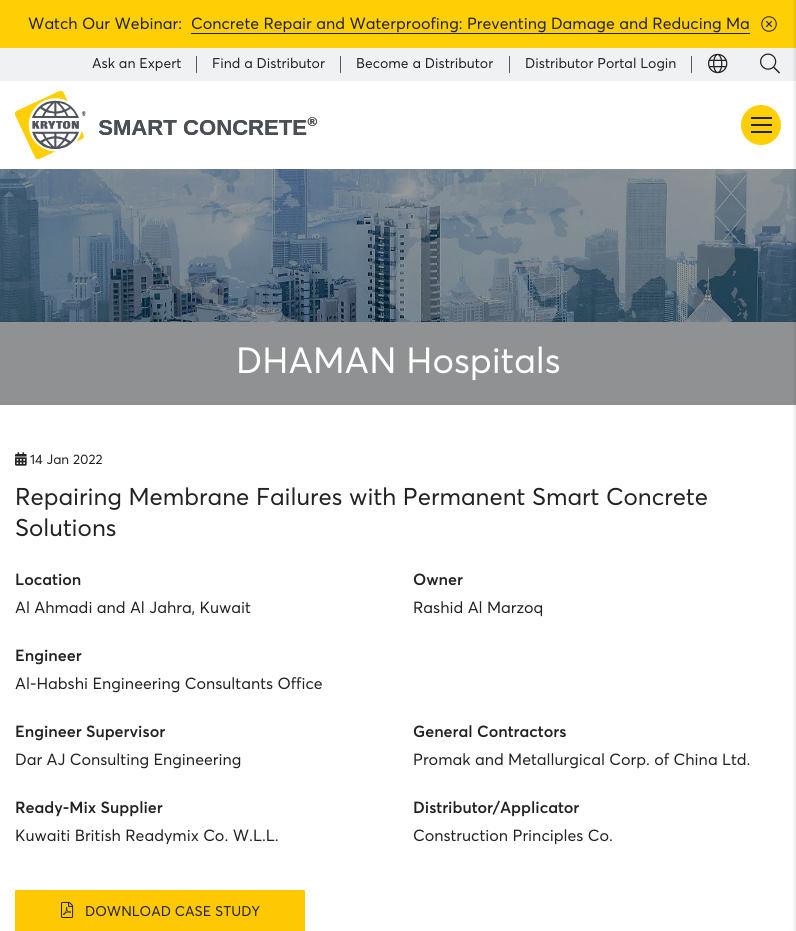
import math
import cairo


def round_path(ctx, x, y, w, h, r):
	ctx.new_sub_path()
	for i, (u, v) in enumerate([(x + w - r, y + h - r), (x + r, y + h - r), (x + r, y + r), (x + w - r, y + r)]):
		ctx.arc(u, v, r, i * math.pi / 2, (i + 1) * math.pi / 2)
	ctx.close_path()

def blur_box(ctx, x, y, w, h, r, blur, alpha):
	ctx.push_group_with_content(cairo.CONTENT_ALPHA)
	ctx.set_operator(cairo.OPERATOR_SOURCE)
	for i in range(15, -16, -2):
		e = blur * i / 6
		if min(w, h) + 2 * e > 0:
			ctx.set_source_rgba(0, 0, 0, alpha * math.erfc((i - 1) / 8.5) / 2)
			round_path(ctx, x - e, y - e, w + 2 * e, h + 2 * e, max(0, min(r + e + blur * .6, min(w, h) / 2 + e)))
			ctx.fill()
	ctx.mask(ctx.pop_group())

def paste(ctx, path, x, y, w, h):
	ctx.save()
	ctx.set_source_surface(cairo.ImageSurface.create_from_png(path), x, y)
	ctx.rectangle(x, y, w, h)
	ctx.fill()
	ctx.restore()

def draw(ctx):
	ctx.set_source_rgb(1, 1, 1)
	ctx.paint()
	paste(ctx, 'media/1.png', 15, 91, 302, 68)
	ctx.set_source_rgb(1, 0.812, 0.024)
	ctx.arc(761, 125, 20, 0, 2 * math.pi)
	ctx.fill()
	ctx.set_source_rgb(0.133, 0.133, 0.133)
	ctx.rectangle(751, 124, 21, 2)
	ctx.rectangle(751, 117, 21, 2)
	ctx.rectangle(751, 131, 21, 2)
	ctx.fill()
	ctx.set_source_rgb(1, 0.812, 0.024)
	ctx.rectangle(0, 0, 796, 48)
	ctx.fill()
	ctx.set_source_rgb(0.941, 0.945, 0.953)
	ctx.rectangle(0, 48, 796, 33)
	ctx.fill()
	ctx.set_source_rgb(0.565, 0.569, 0.573)
	ctx.rectangle(0, 322, 796, 83)
	ctx.fill()
	paste(ctx, 'media/5.png', 0, 169, 796, 153)
	ctx.set_source_rgb(0, 0, 0)
	blur_box(ctx, 796, 0, 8, 931, 0, 2.5, 0.2)
	ctx.select_font_face('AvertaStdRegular')
	ctx.set_font_size(16)
	ctx.set_source_rgb(0.133, 0.133, 0.133)
	ctx.move_to(28, 29)
	ctx.show_text('Watch Our Webinar:')
	ctx.move_to(191, 29)
	ctx.show_text('Concrete Repair and Waterproofing: Preventing Damage and Reducing Ma')
	ctx.rectangle(191, 33, 559, 1)
	ctx.fill()
	paste(ctx, 'media/2.png', 761, 16, 16, 16)
	ctx.set_source_rgb(0.349, 0.349, 0.353)
	ctx.rectangle(196, 56, 1, 17)
	ctx.fill()
	ctx.set_font_size(14)
	ctx.set_source_rgb(0.133, 0.133, 0.133)
	ctx.move_to(92, 68)
	ctx.show_text('Ask an Expert')
	ctx.set_source_rgb(0.349, 0.349, 0.353)
	ctx.rectangle(340, 56, 1, 17)
	ctx.fill()
	ctx.set_source_rgb(0.133, 0.133, 0.133)
	ctx.move_to(212, 68)
	ctx.show_text('Find a Distributor')
	ctx.set_source_rgb(0.349, 0.349, 0.353)
	ctx.rectangle(509, 56, 1, 17)
	ctx.fill()
	ctx.set_source_rgb(0.133, 0.133, 0.133)
	ctx.move_to(356, 68)
	ctx.show_text('Become a Distributor')
	ctx.set_source_rgb(0.349, 0.349, 0.353)
	ctx.rectangle(691, 56, 1, 17)
	ctx.fill()
	ctx.set_source_rgb(0.133, 0.133, 0.133)
	ctx.move_to(525, 68)
	ctx.show_text('Distributor Portal Login')
	paste(ctx, 'media/3.png', 708, 53, 20, 21)
	paste(ctx, 'media/4.png', 760, 53, 20, 21)
	ctx.set_font_size(36)
	ctx.set_source_rgb(1, 1, 1)
	ctx.move_to(236, 373)
	ctx.show_text('DHAMAN Hospitals')
	paste(ctx, 'media/6.png', 15, 452, 12, 14)
	ctx.set_font_size(13.5)
	ctx.set_source_rgb(0.133, 0.133, 0.133)
	ctx.move_to(30, 464)
	ctx.show_text('14 Jan 2022')
	ctx.set_font_size(24)
	ctx.move_to(15, 505)
	ctx.show_text('Repairing Membrane Failures with Permanent Smart Concrete')
	ctx.move_to(15, 536)
	ctx.show_text('Solutions')
	ctx.select_font_face('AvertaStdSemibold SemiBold')
	ctx.set_font_size(16)
	ctx.move_to(15, 585)
	ctx.show_text('Location')
	ctx.select_font_face('AvertaStdRegular')
	ctx.move_to(15, 613)
	ctx.show_text('Al Ahmadi and Al Jahra, Kuwait')
	ctx.select_font_face('AvertaStdSemibold SemiBold')
	ctx.move_to(413, 585)
	ctx.show_text('Owner')
	ctx.select_font_face('AvertaStdRegular')
	ctx.move_to(413, 613)
	ctx.show_text('Rashid Al Marzoq')
	ctx.select_font_face('AvertaStdSemibold SemiBold')
	ctx.move_to(15, 661)
	ctx.show_text('Engineer')
	ctx.select_font_face('AvertaStdRegular')
	ctx.move_to(15, 689)
	ctx.show_text('Al-Habshi Engineering Consultants Office')
	ctx.select_font_face('AvertaStdSemibold SemiBold')
	ctx.move_to(15, 737)
	ctx.show_text('Engineer Supervisor')
	ctx.select_font_face('AvertaStdRegular')
	ctx.move_to(15, 765)
	ctx.show_text('Dar AJ Consulting Engineering')
	ctx.select_font_face('AvertaStdSemibold SemiBold')
	ctx.move_to(413, 737)
	ctx.show_text('General Contractors')
	ctx.select_font_face('AvertaStdRegular')
	ctx.move_to(413, 765)
	ctx.show_text('Promak and Metallurgical Corp. of China Ltd.')
	ctx.select_font_face('AvertaStdSemibold SemiBold')
	ctx.move_to(15, 813)
	ctx.show_text('Ready-Mix Supplier')
	ctx.select_font_face('AvertaStdRegular')
	ctx.move_to(15, 841)
	ctx.show_text('Kuwaiti British Readymix Co. W.L.L.')
	ctx.select_font_face('AvertaStdSemibold SemiBold')
	ctx.move_to(413, 813)
	ctx.show_text('Distributor/Applicator')
	ctx.select_font_face('AvertaStdRegular')
	ctx.move_to(413, 841)
	ctx.show_text('Construction Principles Co.')
	ctx.set_source_rgb(0.996, 0.784, 0.012)
	ctx.rectangle(15, 890, 290, 41)
	ctx.fill()
	paste(ctx, 'media/7.png', 61, 901, 13, 17)
	ctx.set_font_size(14)
	ctx.set_source_rgb(0.133, 0.133, 0.133)
	ctx.move_to(85, 916)
	ctx.show_text('DOWNLOAD CASE STUDY')


surface = cairo.ImageSurface(cairo.FORMAT_RGB24, 796, 931)
ctx = cairo.Context(surface)
options = cairo.FontOptions()
options.set_hint_metrics(cairo.HINT_METRICS_OFF)
options.set_hint_style(cairo.HINT_STYLE_NONE)
ctx.set_font_options(options)
ctx.set_miter_limit(4)
draw(ctx)
surface.write_to_png('image.png')
